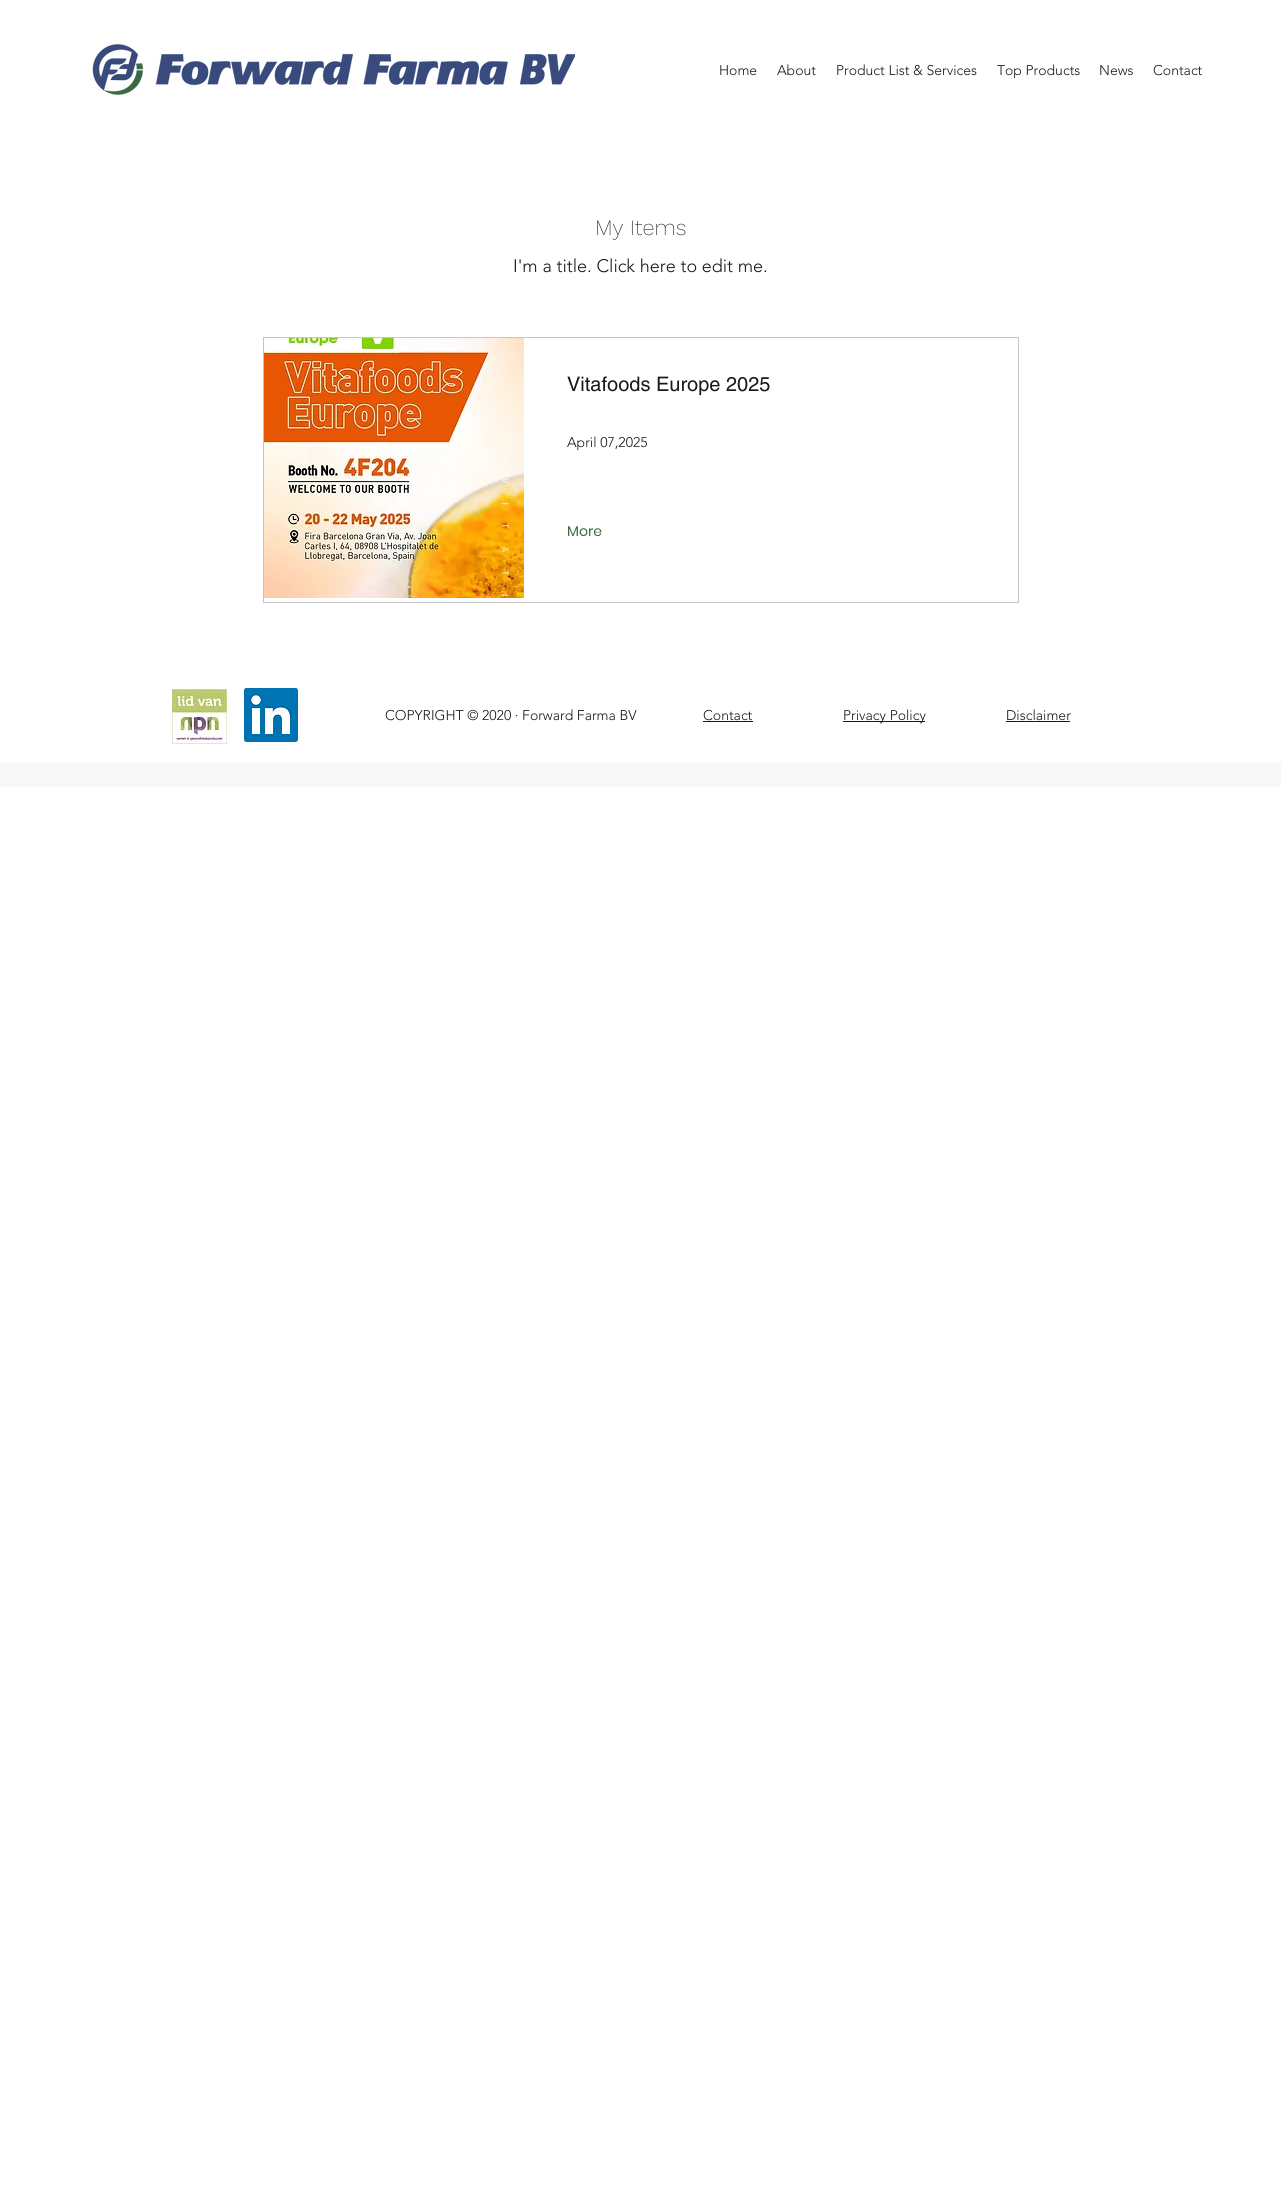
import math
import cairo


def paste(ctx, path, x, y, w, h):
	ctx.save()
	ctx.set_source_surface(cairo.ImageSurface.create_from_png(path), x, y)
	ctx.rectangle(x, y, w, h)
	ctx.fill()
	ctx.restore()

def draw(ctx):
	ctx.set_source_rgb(1, 1, 1)
	ctx.paint()
	paste(ctx, 'media/1.png', 92, 44, 483, 51)
	ctx.select_font_face('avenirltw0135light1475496 Light')
	ctx.set_font_size(14)
	ctx.set_source_rgb(0.094, 0.094, 0.094)
	for x, y, s in [
		(719, 75, 'Home'),
		(777, 75, 'About'),
		(836, 75, 'Product List & Services'),
		(997, 75, 'Top Products'),
		(1099, 75, 'News'),
		(1153, 75, 'Contact'),
	]:
		ctx.move_to(x, y)
		ctx.show_text(s)
	ctx.select_font_face('Work Sans ExtraLight')
	ctx.set_font_size(22)
	ctx.move_to(595, 235)
	ctx.show_text('My Items')
	ctx.select_font_face('avenirltw0135light1475496 Light')
	ctx.set_font_size(18)
	ctx.move_to(513, 272)
	ctx.show_text('I\'m a title. Click here to edit me.')
	ctx.rectangle(263.5, 337.5, 755, 265)
	ctx.set_source_rgb(0.773, 0.773, 0.773)
	ctx.set_line_width(1)
	ctx.stroke()
	paste(ctx, 'media/2.png', 264, 338, 260, 260)
	ctx.select_font_face('helvetica')
	ctx.set_font_size(20)
	ctx.set_source_rgb(0.094, 0.094, 0.094)
	ctx.move_to(567, 391)
	ctx.show_text('Vitafoods Europe 2025')
	ctx.select_font_face('avenirltw0135light1475496 Light')
	ctx.set_font_size(14)
	ctx.move_to(567, 447)
	ctx.show_text('April 07,2025')
	ctx.select_font_face('Poppins')
	ctx.set_source_rgb(0.227, 0.424, 0.267)
	ctx.move_to(567, 536)
	ctx.show_text('More')
	paste(ctx, 'media/3.png', 172, 689, 55, 55)
	paste(ctx, 'media/4.png', 244, 688, 54, 54)
	ctx.select_font_face('avenirltw0135light1475496 Light')
	ctx.set_source_rgb(0.094, 0.094, 0.094)
	ctx.move_to(385, 720)
	ctx.show_text('COPYRIGHT © 2020 · Forward Farma BV')
	ctx.move_to(703, 720)
	ctx.show_text('Contact')
	ctx.rectangle(703, 721, 50, 1)
	ctx.fill()
	ctx.rectangle(843, 721, 82, 1)
	ctx.fill()
	ctx.move_to(843, 720)
	ctx.show_text('Privacy Policy')
	ctx.move_to(1006, 720)
	ctx.show_text('Disclaimer')
	ctx.rectangle(1006, 721, 64, 1)
	ctx.fill()
	ctx.set_source_rgb(0.969, 0.969, 0.969)
	ctx.rectangle(0, 763, 1281, 24)
	ctx.fill()


surface = cairo.ImageSurface(cairo.FORMAT_RGB24, 1281, 2190)
ctx = cairo.Context(surface)
options = cairo.FontOptions()
options.set_hint_metrics(cairo.HINT_METRICS_OFF)
options.set_hint_style(cairo.HINT_STYLE_NONE)
ctx.set_font_options(options)
ctx.set_miter_limit(4)
draw(ctx)
surface.write_to_png('image.png')
